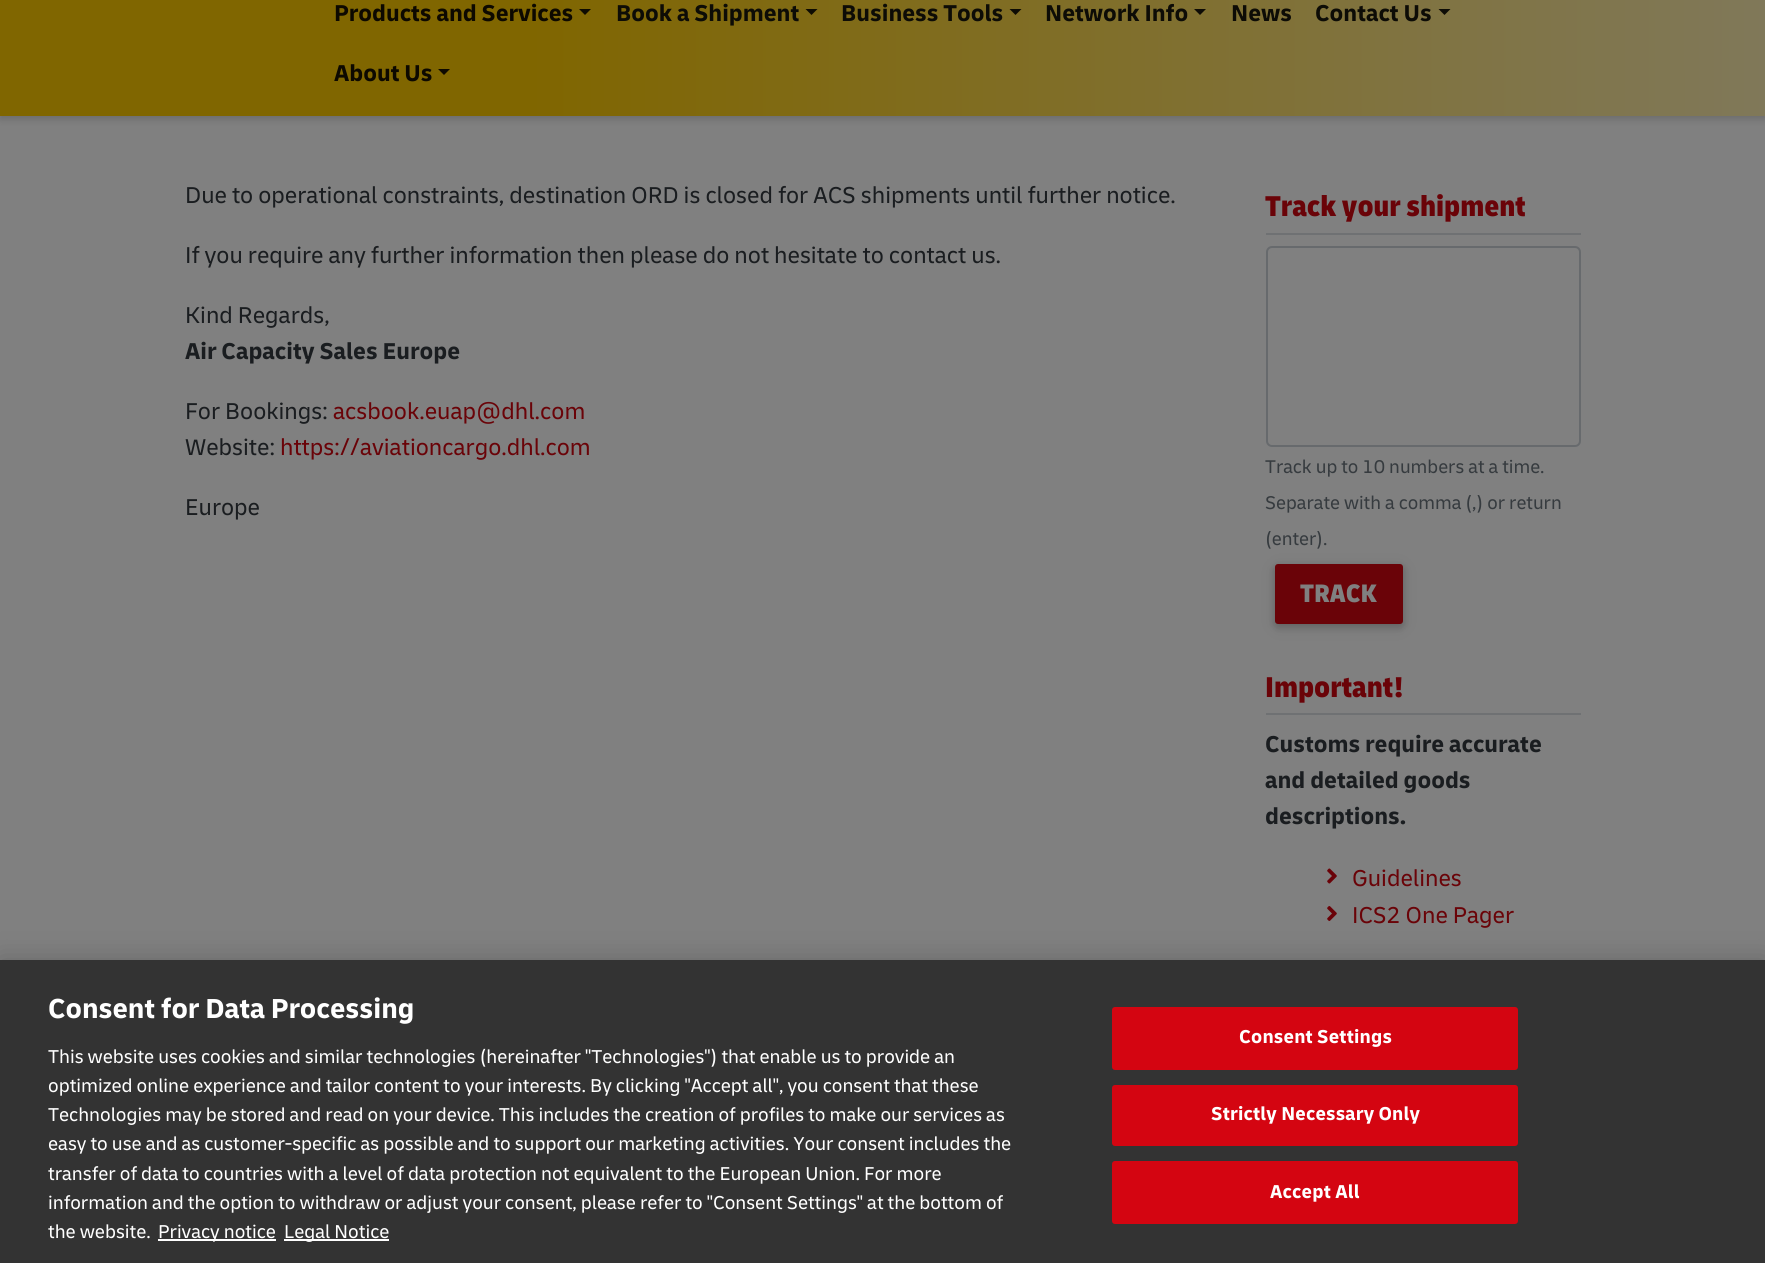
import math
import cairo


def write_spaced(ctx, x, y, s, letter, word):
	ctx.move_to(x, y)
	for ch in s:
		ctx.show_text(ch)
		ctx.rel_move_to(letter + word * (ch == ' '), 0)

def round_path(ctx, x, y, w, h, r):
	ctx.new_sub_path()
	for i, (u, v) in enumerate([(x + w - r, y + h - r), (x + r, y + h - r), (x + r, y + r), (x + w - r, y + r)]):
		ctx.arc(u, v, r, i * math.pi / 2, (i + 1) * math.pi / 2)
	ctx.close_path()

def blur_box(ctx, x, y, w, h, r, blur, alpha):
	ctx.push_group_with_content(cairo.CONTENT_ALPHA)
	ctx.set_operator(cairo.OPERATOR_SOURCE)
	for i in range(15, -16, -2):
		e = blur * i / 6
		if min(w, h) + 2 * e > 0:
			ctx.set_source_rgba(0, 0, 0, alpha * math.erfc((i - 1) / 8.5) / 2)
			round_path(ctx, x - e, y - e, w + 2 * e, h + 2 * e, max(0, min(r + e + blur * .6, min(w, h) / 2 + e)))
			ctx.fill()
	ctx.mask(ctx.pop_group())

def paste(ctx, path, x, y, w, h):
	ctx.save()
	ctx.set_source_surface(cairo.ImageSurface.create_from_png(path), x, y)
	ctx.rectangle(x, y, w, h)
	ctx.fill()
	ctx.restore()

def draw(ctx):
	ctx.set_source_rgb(0.502, 0.502, 0.502)
	ctx.paint()
	gradient = cairo.LinearGradient(0, 44, 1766, 43)
	gradient.add_color_stop_rgba(0, 0.502, 0.4, 0, 1)
	gradient.add_color_stop_rgba(0.3, 0.502, 0.4, 0, 1)
	gradient.add_color_stop_rgba(0.79, 0.502, 0.451, 0.251, 1)
	gradient.add_color_stop_rgba(1, 0.502, 0.471, 0.349, 1)
	ctx.set_source(gradient)
	ctx.rectangle(0, 0, 1765, 116)
	ctx.fill()
	ctx.save()
	ctx.set_fill_rule(cairo.FILL_RULE_EVEN_ODD)
	ctx.new_path()
	ctx.move_to(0, 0)
	ctx.line_to(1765, 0)
	ctx.line_to(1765, 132)
	ctx.line_to(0, 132)
	ctx.close_path()
	ctx.move_to(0, -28)
	ctx.line_to(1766, -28)
	ctx.line_to(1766, 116)
	ctx.line_to(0, 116)
	ctx.close_path()
	ctx.clip()
	ctx.set_source_rgb(0, 0, 0)
	blur_box(ctx, 0, -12, 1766, 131, 0, 4, 0.16)
	ctx.restore()
	ctx.select_font_face('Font', cairo.FONT_SLANT_NORMAL, cairo.FONT_WEIGHT_BOLD)
	ctx.set_font_size(24)
	ctx.set_source_rgb(0.051, 0.039, 0)
	ctx.move_to(334, 21)
	ctx.show_text('Products and Services')
	ctx.set_source_rgb(0.051, 0.043, 0.004)
	ctx.new_path()
	ctx.move_to(579, 9)
	ctx.line_to(591, 9)
	ctx.line_to(585, 15)
	ctx.close_path()
	ctx.fill()
	ctx.set_source_rgb(0.051, 0.047, 0.024)
	ctx.move_to(616, 21)
	ctx.show_text('Book a Shipment')
	ctx.set_source_rgb(0.051, 0.043, 0.008)
	ctx.new_path()
	ctx.move_to(805.5, 9)
	ctx.line_to(817.5, 9)
	ctx.line_to(811.5, 15)
	ctx.close_path()
	ctx.fill()
	ctx.set_source_rgb(0.051, 0.047, 0.024)
	ctx.move_to(841, 21)
	ctx.show_text('Business Tools')
	ctx.set_source_rgb(0.051, 0.043, 0.016)
	ctx.new_path()
	ctx.move_to(1009.5, 9)
	ctx.line_to(1021.5, 9)
	ctx.line_to(1015.5, 15)
	ctx.close_path()
	ctx.fill()
	ctx.set_source_rgb(0.051, 0.047, 0.024)
	ctx.move_to(1045, 21)
	ctx.show_text('Network Info')
	ctx.set_source_rgb(0.051, 0.043, 0.02)
	ctx.new_path()
	ctx.move_to(1194, 9)
	ctx.line_to(1206, 9)
	ctx.line_to(1200, 15)
	ctx.close_path()
	ctx.fill()
	ctx.set_source_rgb(0.051, 0.047, 0.024)
	ctx.move_to(1231, 21)
	ctx.show_text('News')
	ctx.move_to(1315, 21)
	ctx.show_text('Contact Us')
	ctx.set_source_rgb(0.051, 0.047, 0.027)
	ctx.new_path()
	ctx.move_to(1438.5, 9)
	ctx.line_to(1450.5, 9)
	ctx.line_to(1444.5, 15)
	ctx.close_path()
	ctx.fill()
	ctx.set_source_rgb(0.051, 0.039, 0)
	ctx.move_to(334, 81)
	ctx.show_text('About Us')
	ctx.new_path()
	ctx.move_to(438, 69)
	ctx.line_to(450, 69)
	ctx.line_to(444, 75)
	ctx.close_path()
	ctx.fill()
	ctx.select_font_face('Font')
	ctx.set_source_rgb(0.102, 0.114, 0.125)
	for x, y, s in [
		(185, 203, 'Due to operational constraints, destination ORD is closed for ACS shipments until further notice.'),
		(185, 263, 'If you require any further information then please do not hesitate to contact us.'),
		(185, 323, 'Kind Regards,'),
	]:
		ctx.move_to(x, y)
		ctx.show_text(s)
	ctx.select_font_face('Font', cairo.FONT_SLANT_NORMAL, cairo.FONT_WEIGHT_BOLD)
	ctx.move_to(185, 359)
	ctx.show_text('Air Capacity Sales Europe')
	ctx.select_font_face('Font')
	ctx.move_to(185, 419)
	ctx.show_text('For Bookings:')
	ctx.set_source_rgb(0.416, 0.012, 0.035)
	ctx.move_to(333, 419)
	ctx.show_text('acsbook.euap@dhl.com')
	ctx.set_source_rgb(0.102, 0.114, 0.125)
	ctx.move_to(185, 455)
	ctx.show_text('Website:')
	ctx.set_source_rgb(0.416, 0.012, 0.035)
	ctx.move_to(280, 455)
	ctx.show_text('https://aviationcargo.dhl.com')
	ctx.set_source_rgb(0.102, 0.114, 0.125)
	ctx.move_to(185, 515)
	ctx.show_text('Europe')
	ctx.set_source_rgb(0.435, 0.443, 0.451)
	ctx.rectangle(1266, 233, 315, 2)
	ctx.fill()
	ctx.select_font_face('Font ExtraBold')
	ctx.set_font_size(30)
	ctx.set_source_rgb(0.416, 0.012, 0.035)
	ctx.move_to(1265, 216)
	ctx.show_text('Track your shipment')
	round_path(ctx, 1267, 247, 313, 199, 5)
	ctx.set_source_rgb(0.404, 0.416, 0.427)
	ctx.stroke()
	ctx.select_font_face('Font')
	ctx.set_font_size(19.25)
	ctx.set_source_rgb(0.212, 0.231, 0.247)
	for x, y, s in [
		(1265, 473, 'Track up to 10 numbers at a time.'),
		(1265, 509, 'Separate with a comma (,) or return'),
		(1265, 545, '(enter).'),
	]:
		ctx.move_to(x, y)
		ctx.show_text(s)
	ctx.set_source_rgb(0, 0, 0)
	blur_box(ctx, 1275, 567, 128, 60, 3, 7.5, 0.12)
	blur_box(ctx, 1275, 567, 128, 60, 3, 4, 0.16)
	ctx.set_source_rgb(0.416, 0.012, 0.035)
	round_path(ctx, 1276.5, 565.5, 125, 57, 1.5)
	ctx.fill_preserve()
	ctx.set_line_width(3)
	ctx.stroke()
	ctx.select_font_face('Font ExtraBold')
	ctx.set_font_size(26.5)
	ctx.set_source_rgb(0.502, 0.502, 0.502)
	ctx.move_to(1300, 602)
	ctx.show_text('TRACK')
	ctx.set_source_rgb(0.435, 0.443, 0.451)
	ctx.rectangle(1266, 713, 315, 2)
	ctx.fill()
	ctx.set_font_size(30)
	ctx.set_source_rgb(0.416, 0.012, 0.035)
	ctx.move_to(1265, 697)
	ctx.show_text('Important!')
	ctx.select_font_face('Font', cairo.FONT_SLANT_NORMAL, cairo.FONT_WEIGHT_BOLD)
	ctx.set_font_size(24)
	ctx.set_source_rgb(0.102, 0.114, 0.125)
	for x, y, s in [
		(1265, 752, 'Customs require accurate'),
		(1265, 788, 'and detailed goods'),
		(1265, 824, 'descriptions.'),
	]:
		ctx.move_to(x, y)
		ctx.show_text(s)
	paste(ctx, 'media/1.png', 1327, 868, 10, 16)
	ctx.select_font_face('Font')
	ctx.set_source_rgb(0.416, 0.012, 0.035)
	ctx.move_to(1352, 886)
	ctx.show_text('Guidelines')
	paste(ctx, 'media/2.png', 1327, 906, 10, 15)
	ctx.move_to(1352, 923)
	ctx.show_text('ICS2 One Pager')
	ctx.set_source_rgb(0, 0, 0)
	blur_box(ctx, 0, 960, 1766, 303, 0, 13.5, 0.2)
	ctx.set_source_rgb(0.2, 0.2, 0.2)
	ctx.rectangle(0, 960, 1765, 303)
	ctx.fill()
	ctx.select_font_face('Font', cairo.FONT_SLANT_NORMAL, cairo.FONT_WEIGHT_BOLD)
	ctx.set_font_size(28.75)
	ctx.set_source_rgb(1, 1, 1)
	ctx.move_to(48, 1018)
	ctx.show_text('Consent for Data Processing')
	ctx.select_font_face('Font')
	ctx.set_font_size(19.5)
	for x, y, s in [
		(48, 1063, 'This website uses cookies and similar technologies (hereinafter "Technologies") that enable us to provide an'),
		(48, 1092, 'optimized online experience and tailor content to your interests. By clicking "Accept all", you consent that these'),
		(48, 1121, 'Technologies may be stored and read on your device. This includes the creation of profiles to make our services as'),
		(48, 1150, 'easy to use and as customer-specific as possible and to support our marketing activities. Your consent includes the'),
		(48, 1180, 'transfer of data to countries with a level of data protection not equivalent to the European Union. For more'),
		(48, 1209, 'information and the option to withdraw or adjust your consent, please refer to "Consent Settings" at the bottom of'),
		(48, 1238, 'the website.'),
	]:
		ctx.move_to(x, y)
		ctx.show_text(s)
	ctx.rectangle(158, 1239, 118, 2)
	ctx.fill()
	ctx.move_to(158, 1238)
	ctx.show_text('Privacy notice')
	ctx.rectangle(284, 1239, 105, 2)
	ctx.fill()
	ctx.move_to(284, 1238)
	ctx.show_text('Legal Notice')
	ctx.set_source_rgb(0.831, 0.02, 0.067)
	round_path(ctx, 1113, 1008, 404, 61, 2)
	ctx.fill_preserve()
	ctx.set_line_width(2)
	ctx.stroke()
	ctx.select_font_face('Font', cairo.FONT_SLANT_NORMAL, cairo.FONT_WEIGHT_BOLD)
	ctx.set_source_rgb(1, 1, 1)
	write_spaced(ctx, 1239, 1043, 'Consent Settings', 0.2, 0)
	ctx.set_source_rgb(0.831, 0.02, 0.067)
	round_path(ctx, 1113, 1086, 404, 59, 2)
	ctx.fill_preserve()
	ctx.stroke()
	ctx.set_source_rgb(1, 1, 1)
	write_spaced(ctx, 1211, 1120, 'Strictly Necessary Only', 0.2, 0)
	ctx.set_source_rgb(0.831, 0.02, 0.067)
	round_path(ctx, 1113, 1162, 404, 61, 2)
	ctx.fill_preserve()
	ctx.stroke()
	ctx.set_source_rgb(1, 1, 1)
	write_spaced(ctx, 1270, 1198, 'Accept All', 0.2, 0)


surface = cairo.ImageSurface(cairo.FORMAT_RGB24, 1765, 1263)
ctx = cairo.Context(surface)
options = cairo.FontOptions()
options.set_hint_metrics(cairo.HINT_METRICS_OFF)
options.set_hint_style(cairo.HINT_STYLE_NONE)
ctx.set_font_options(options)
ctx.set_miter_limit(4)
draw(ctx)
surface.write_to_png('image.png')
